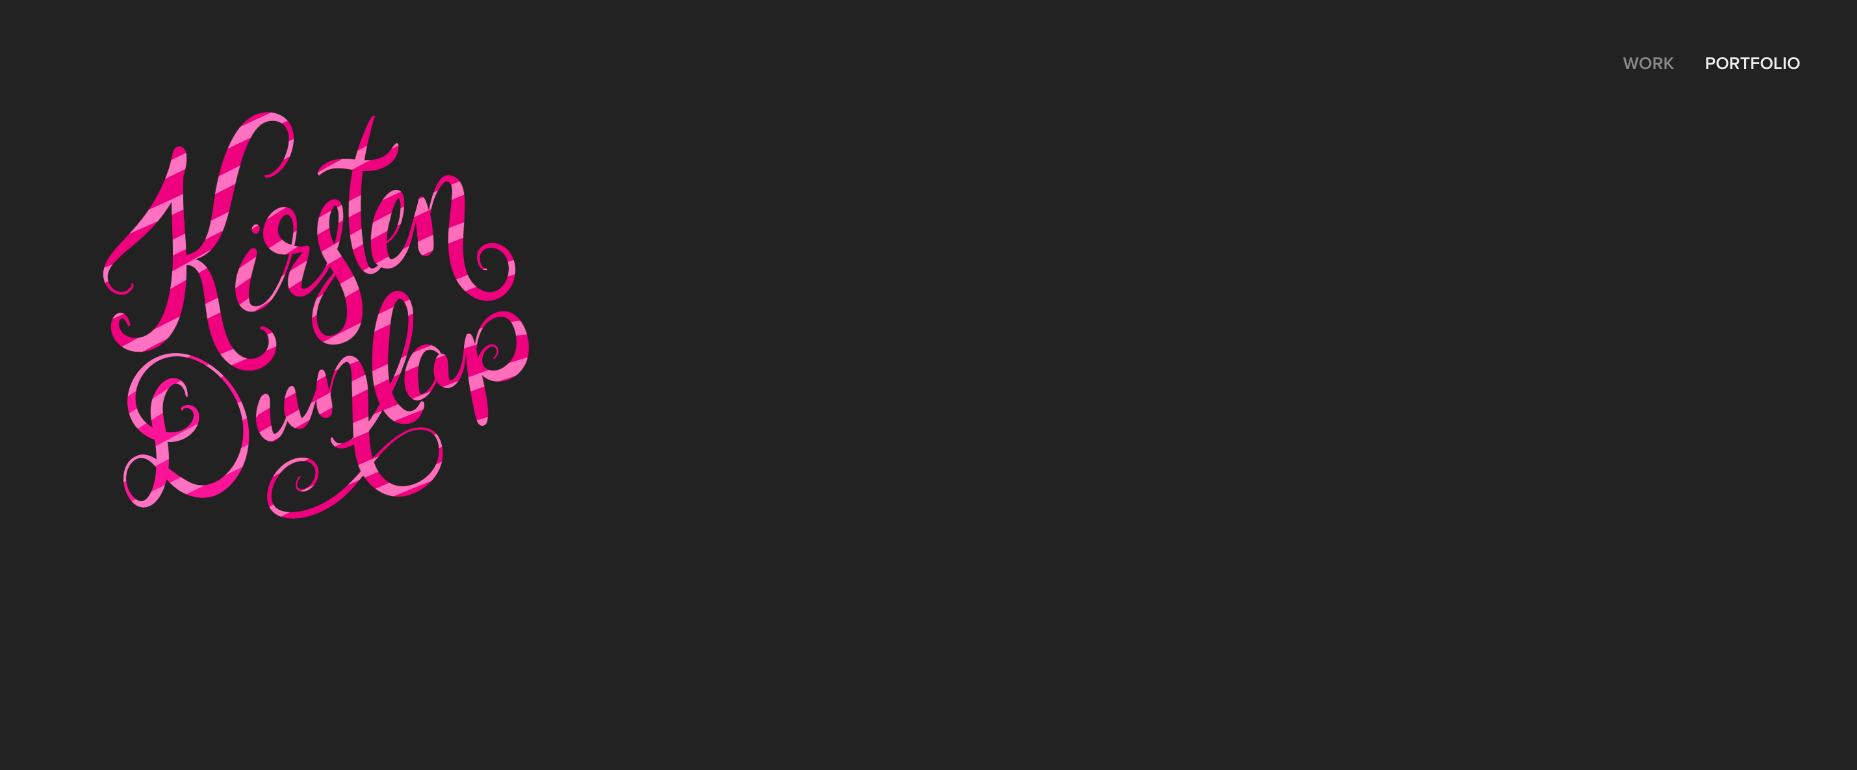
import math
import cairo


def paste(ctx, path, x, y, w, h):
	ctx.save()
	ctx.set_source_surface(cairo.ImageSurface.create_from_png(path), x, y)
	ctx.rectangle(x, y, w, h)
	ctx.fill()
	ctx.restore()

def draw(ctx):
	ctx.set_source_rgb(0.133, 0.133, 0.133)
	ctx.paint()
	ctx.select_font_face('Proxima Nova SemiBold')
	ctx.set_font_size(17.5)
	ctx.set_source_rgb(0.533, 0.533, 0.533)
	ctx.move_to(1623, 69)
	ctx.show_text('WORK')
	ctx.set_source_rgb(0.933, 0.933, 0.933)
	ctx.move_to(1705, 69)
	ctx.show_text('PORTFOLIO')
	paste(ctx, 'media/1.png', 102, 112, 428, 407)


surface = cairo.ImageSurface(cairo.FORMAT_RGB24, 1857, 770)
ctx = cairo.Context(surface)
options = cairo.FontOptions()
options.set_hint_metrics(cairo.HINT_METRICS_OFF)
options.set_hint_style(cairo.HINT_STYLE_NONE)
ctx.set_font_options(options)
ctx.set_miter_limit(4)
draw(ctx)
surface.write_to_png('image.png')
